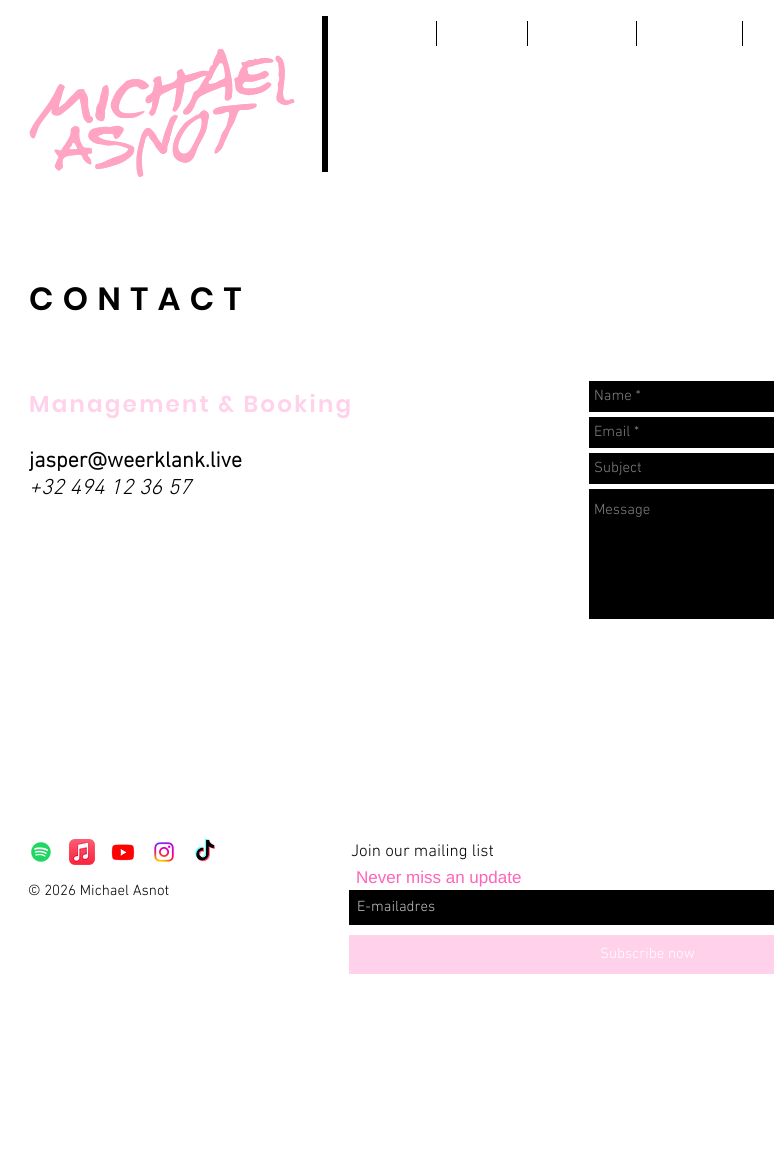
import math
import cairo


def write_spaced(ctx, x, y, s, letter, word):
	ctx.move_to(x, y)
	for ch in s:
		ctx.show_text(ch)
		ctx.rel_move_to(letter + word * (ch == ' '), 0)

def paste(ctx, path, x, y, w, h):
	ctx.save()
	ctx.set_source_surface(cairo.ImageSurface.create_from_png(path), x, y)
	ctx.rectangle(x, y, w, h)
	ctx.fill()
	ctx.restore()

def draw(ctx):
	ctx.set_source_rgb(1, 1, 1)
	ctx.paint()
	ctx.set_source_rgb(0, 0, 0)
	ctx.rectangle(322, 16, 6, 156)
	ctx.rectangle(436, 21, 1, 25)
	ctx.rectangle(527, 21, 1, 25)
	ctx.rectangle(636, 21, 1, 25)
	ctx.rectangle(742, 21, 1, 25)
	ctx.fill()
	paste(ctx, 'media/1.png', 29, 49, 266, 128)
	ctx.select_font_face('Poppins SemiBold')
	ctx.set_font_size(32)
	write_spaced(ctx, 29, 310, 'CONTACT', 9.5, 0)
	ctx.set_font_size(23)
	ctx.set_source_rgb(1, 0.82, 0.918)
	write_spaced(ctx, 29, 412, 'Management & Booking', 2.25, 0)
	ctx.select_font_face('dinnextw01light', cairo.FONT_SLANT_NORMAL, cairo.FONT_WEIGHT_BOLD)
	ctx.set_font_size(22)
	ctx.set_source_rgb(0, 0, 0)
	ctx.move_to(29, 467)
	ctx.show_text('jasper@weerklank.live')
	ctx.select_font_face('dinnextw01light Light', cairo.FONT_SLANT_ITALIC)
	ctx.move_to(29, 494)
	ctx.show_text('+32 494 12 36 57')
	ctx.rectangle(589, 381, 185, 31)
	ctx.fill()
	ctx.select_font_face('dinnextw01light Light')
	ctx.set_font_size(15)
	ctx.set_source_rgb(0.502, 0.502, 0.502)
	ctx.move_to(594, 400)
	ctx.show_text('Name *')
	ctx.set_source_rgb(0, 0, 0)
	ctx.rectangle(589, 417, 185, 31)
	ctx.fill()
	ctx.set_source_rgb(0.502, 0.502, 0.502)
	ctx.move_to(594, 436)
	ctx.show_text('Email *')
	ctx.set_source_rgb(0, 0, 0)
	ctx.rectangle(589, 453, 185, 31)
	ctx.fill()
	ctx.set_source_rgb(0.502, 0.502, 0.502)
	ctx.move_to(594, 472)
	ctx.show_text('Subject')
	ctx.set_source_rgb(0, 0, 0)
	ctx.rectangle(589, 489, 185, 130)
	ctx.fill()
	ctx.set_source_rgb(0.502, 0.502, 0.502)
	ctx.move_to(594, 514)
	ctx.show_text('Message')
	paste(ctx, 'media/2.png', 31, 842, 20, 20)
	paste(ctx, 'media/3.png', 69, 839, 26, 26)
	paste(ctx, 'media/4.png', 111, 844, 24, 17)
	paste(ctx, 'media/5.png', 154, 842, 20, 20)
	paste(ctx, 'media/6.png', 195, 839, 20, 23)
	ctx.set_font_size(17)
	ctx.set_source_rgb(0, 0, 0)
	ctx.move_to(351, 856)
	ctx.show_text('Join our mailing list')
	ctx.select_font_face('Liberation Sans')
	ctx.set_source_rgb(1, 0.392, 0.729)
	ctx.move_to(356, 883)
	ctx.show_text('Never miss an update')
	ctx.set_source_rgb(0, 0, 0)
	ctx.rectangle(349, 890, 425, 35)
	ctx.fill()
	ctx.select_font_face('dinnextw01light Light')
	ctx.set_font_size(15)
	ctx.set_source_rgb(0.749, 0.749, 0.749)
	ctx.move_to(357, 911)
	ctx.show_text('E-mailadres')
	ctx.set_source_rgb(1, 0.82, 0.918)
	ctx.rectangle(349, 935, 425, 39)
	ctx.fill()
	ctx.set_source_rgb(1, 1, 1)
	ctx.move_to(600, 958)
	ctx.show_text('Subscribe now')
	ctx.set_source_rgb(0, 0, 0)
	ctx.move_to(28, 895)
	ctx.show_text('© 2026 Michael Asnot')


surface = cairo.ImageSurface(cairo.FORMAT_RGB24, 774, 1165)
ctx = cairo.Context(surface)
options = cairo.FontOptions()
options.set_hint_metrics(cairo.HINT_METRICS_OFF)
options.set_hint_style(cairo.HINT_STYLE_NONE)
ctx.set_font_options(options)
ctx.set_miter_limit(4)
draw(ctx)
surface.write_to_png('image.png')
